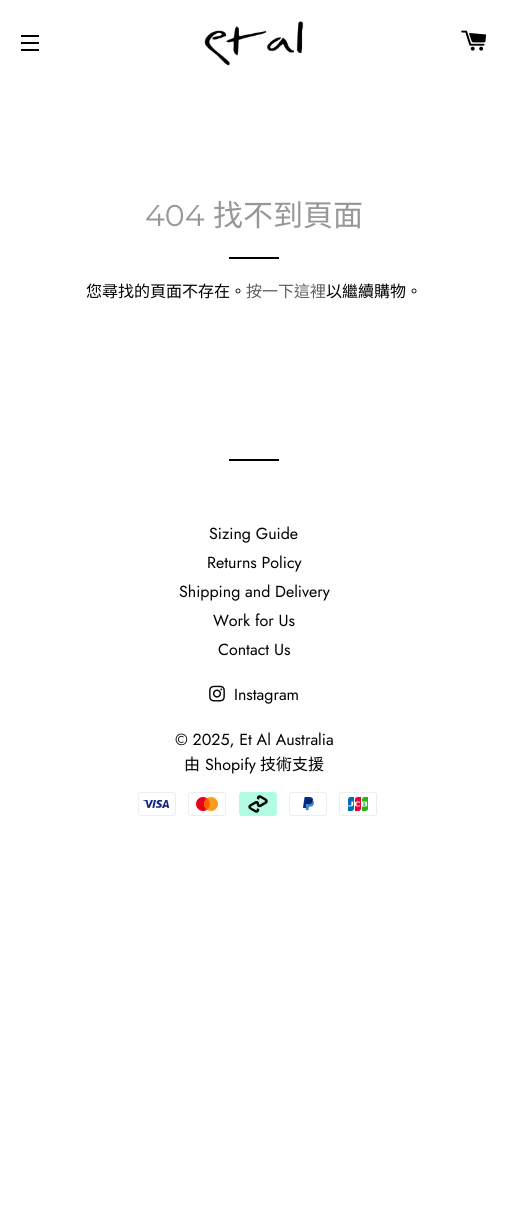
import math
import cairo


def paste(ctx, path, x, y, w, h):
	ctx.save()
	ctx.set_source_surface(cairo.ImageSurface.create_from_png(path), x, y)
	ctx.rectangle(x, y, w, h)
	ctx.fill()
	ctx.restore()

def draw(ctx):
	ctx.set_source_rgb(1, 1, 1)
	ctx.paint()
	ctx.set_source_rgb(0, 0, 0)
	ctx.rectangle(21, 35, 18, 2)
	ctx.rectangle(21, 42, 18, 2)
	ctx.rectangle(21, 49, 18, 2)
	ctx.fill()
	paste(ctx, 'media/1.png', 204, 21, 100, 45)
	paste(ctx, 'media/2.png', 461, 30, 26, 21)
	ctx.select_font_face('Montserrat')
	ctx.set_font_size(30)
	ctx.set_source_rgb(0.592, 0.592, 0.592)
	ctx.move_to(145, 226)
	ctx.show_text('404')
	ctx.select_font_face('Noto Sans CJK TC')
	ctx.move_to(213, 226)
	ctx.show_text('找不到頁面')
	ctx.set_source_rgb(0, 0, 0)
	ctx.rectangle(229, 257, 50, 2)
	ctx.fill()
	ctx.set_font_size(16)
	ctx.move_to(86, 297)
	ctx.show_text('您尋找的頁面不存在。')
	ctx.set_source_rgb(0.384, 0.373, 0.357)
	ctx.move_to(246, 297)
	ctx.show_text('按一下這裡')
	ctx.set_source_rgb(0, 0, 0)
	ctx.move_to(326, 297)
	ctx.show_text('以繼續購物。')
	ctx.rectangle(229, 459, 50, 2)
	ctx.fill()
	ctx.select_font_face('Jost')
	for x, y, s in [
		(209, 539, 'Sizing Guide'),
		(207, 568, 'Returns Policy'),
		(179, 597, 'Shipping and Delivery'),
		(213, 626, 'Work for Us'),
		(218, 655, 'Contact Us'),
	]:
		ctx.move_to(x, y)
		ctx.show_text(s)
	paste(ctx, 'media/3.png', 209, 685, 16, 17)
	ctx.move_to(234, 700)
	ctx.show_text('Instagram')
	ctx.move_to(175, 745)
	ctx.show_text('© 2025, Et Al Australia')
	ctx.select_font_face('Noto Sans CJK TC')
	ctx.move_to(184, 770)
	ctx.show_text('由')
	ctx.select_font_face('Jost')
	ctx.move_to(205, 770)
	ctx.show_text('Shopify')
	ctx.select_font_face('Noto Sans CJK TC')
	ctx.move_to(260, 770)
	ctx.show_text('技術支援')
	paste(ctx, 'media/4.png', 138, 792, 38, 24)
	paste(ctx, 'media/5.png', 188, 792, 38, 24)
	paste(ctx, 'media/6.png', 239, 792, 38, 24)
	paste(ctx, 'media/7.png', 289, 792, 38, 24)
	paste(ctx, 'media/8.png', 339, 792, 38, 24)


surface = cairo.ImageSurface(cairo.FORMAT_RGB24, 508, 1220)
ctx = cairo.Context(surface)
options = cairo.FontOptions()
options.set_hint_metrics(cairo.HINT_METRICS_OFF)
options.set_hint_style(cairo.HINT_STYLE_NONE)
ctx.set_font_options(options)
ctx.set_miter_limit(4)
draw(ctx)
surface.write_to_png('image.png')
